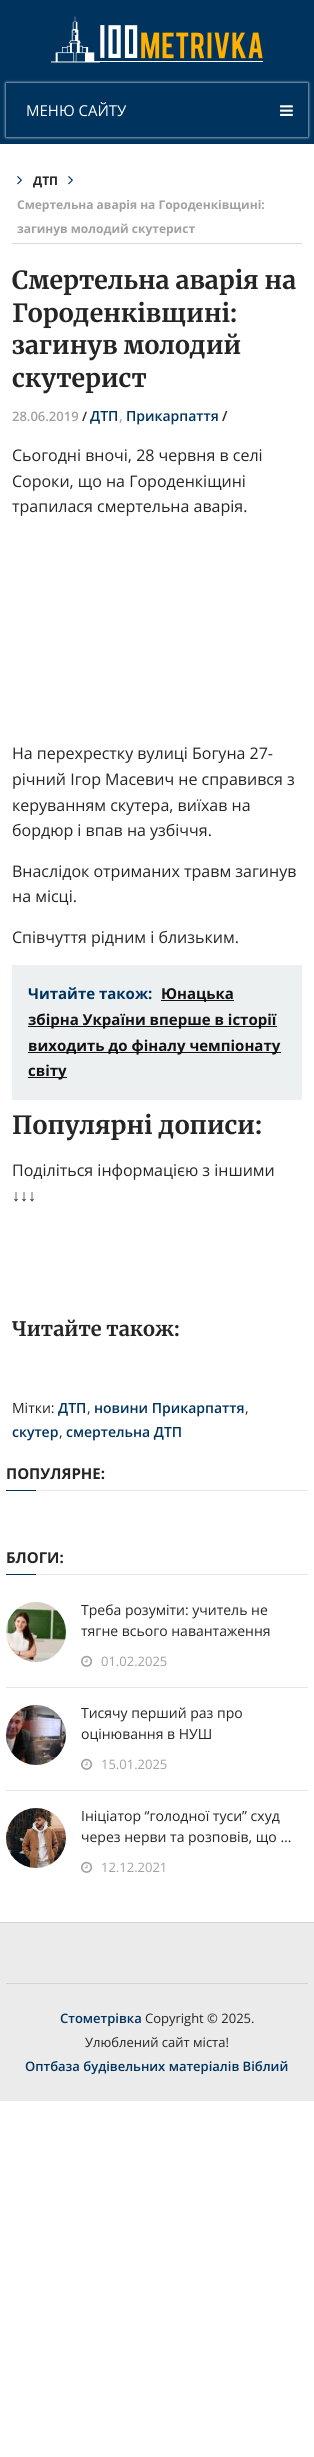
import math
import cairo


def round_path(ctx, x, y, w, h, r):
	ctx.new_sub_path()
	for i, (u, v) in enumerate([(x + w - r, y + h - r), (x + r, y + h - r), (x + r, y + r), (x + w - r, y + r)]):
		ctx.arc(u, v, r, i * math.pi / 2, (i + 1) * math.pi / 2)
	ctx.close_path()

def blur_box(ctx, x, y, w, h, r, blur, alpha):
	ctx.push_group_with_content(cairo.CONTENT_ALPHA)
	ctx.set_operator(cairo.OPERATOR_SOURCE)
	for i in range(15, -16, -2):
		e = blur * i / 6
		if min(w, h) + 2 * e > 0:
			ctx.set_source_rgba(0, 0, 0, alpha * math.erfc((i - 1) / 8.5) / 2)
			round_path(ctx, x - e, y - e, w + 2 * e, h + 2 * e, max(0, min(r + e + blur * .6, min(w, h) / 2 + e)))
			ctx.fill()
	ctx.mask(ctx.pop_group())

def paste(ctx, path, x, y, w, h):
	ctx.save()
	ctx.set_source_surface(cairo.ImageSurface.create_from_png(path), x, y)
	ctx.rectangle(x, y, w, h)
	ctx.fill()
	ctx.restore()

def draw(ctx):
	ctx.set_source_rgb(1, 1, 1)
	ctx.paint()
	ctx.set_source_rgb(0, 0.2, 0.369)
	ctx.rectangle(0, 0, 314, 144)
	ctx.fill()
	paste(ctx, 'media/1.png', 51, 16, 212, 47)
	ctx.save()
	ctx.set_fill_rule(cairo.FILL_RULE_EVEN_ODD)
	ctx.new_path()
	ctx.move_to(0, 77)
	ctx.line_to(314, 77)
	ctx.line_to(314, 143)
	ctx.line_to(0, 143)
	ctx.close_path()
	ctx.move_to(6, 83)
	ctx.line_to(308, 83)
	ctx.line_to(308, 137)
	ctx.line_to(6, 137)
	ctx.close_path()
	ctx.clip()
	ctx.set_source_rgb(1, 1, 1)
	blur_box(ctx, 6, 83, 302, 54, 0, 1.5, 1)
	ctx.restore()
	ctx.select_font_face('Open Sans')
	ctx.set_font_size(15)
	ctx.set_source_rgb(1, 1, 1)
	ctx.move_to(26, 116)
	ctx.show_text('МЕНЮ САЙТУ')
	paste(ctx, 'media/2.png', 280, 105, 13, 11)
	ctx.set_source_rgb(0.851, 0.851, 0.851)
	ctx.rectangle(12, 243, 290, 1)
	ctx.fill()
	paste(ctx, 'media/3.png', 17, 176, 5, 9)
	ctx.select_font_face('Open Sans', cairo.FONT_SLANT_NORMAL, cairo.FONT_WEIGHT_BOLD)
	ctx.set_font_size(12)
	ctx.set_source_rgb(0.145, 0.145, 0.145)
	ctx.move_to(33, 185)
	ctx.show_text('ДТП')
	paste(ctx, 'media/3.png', 68, 176, 5, 9)
	ctx.set_source_rgb(0.631, 0.631, 0.631)
	ctx.move_to(17, 209)
	ctx.show_text('Смертельна аварія на Городенківщині:')
	ctx.move_to(17, 233)
	ctx.show_text('загинув молодий скутерист')
	ctx.select_font_face('Merriweather Light')
	ctx.set_font_size(25)
	ctx.set_source_rgb(0.145, 0.145, 0.145)
	for x, y, s in [
		(12, 289, 'Смертельна аварія на'),
		(12, 322, 'Городенківщині:'),
		(12, 354, 'загинув молодий'),
		(12, 387, 'скутерист'),
	]:
		ctx.move_to(x, y)
		ctx.show_text(s)
	ctx.select_font_face('Open Sans SemiBold')
	ctx.set_font_size(13)
	ctx.set_source_rgb(0.631, 0.631, 0.631)
	ctx.move_to(12, 421)
	ctx.show_text('28.06.2019')
	ctx.set_source_rgb(0.145, 0.145, 0.145)
	ctx.move_to(82, 421)
	ctx.show_text('/')
	ctx.set_font_size(14)
	ctx.set_source_rgb(0, 0.2, 0.369)
	ctx.move_to(90, 421)
	ctx.show_text('ДТП')
	ctx.set_source_rgb(0.631, 0.631, 0.631)
	ctx.move_to(119, 421)
	ctx.show_text(',')
	ctx.set_source_rgb(0, 0.2, 0.369)
	ctx.move_to(126, 421)
	ctx.show_text('Прикарпаття')
	ctx.set_source_rgb(0.145, 0.145, 0.145)
	ctx.move_to(222, 421)
	ctx.show_text('/')
	ctx.select_font_face('Open Sans')
	ctx.set_font_size(16)
	for x, y, s in [
		(12, 461, 'Сьогодні вночі, 28 червня в селі'),
		(12, 487, 'Сороки, що на Городенкіщині'),
		(12, 512, 'трапилася смертельна аварія.'),
		(12, 759, 'На перехрестку вулиці Богуна 27-'),
		(12, 785, 'річний Ігор Масевич не справився з'),
		(12, 811, 'керуванням скутера, виїхав на'),
		(12, 836, 'бордюр і впав на узбіччя.'),
		(12, 877, 'Внаслідок отриманих травм загинув'),
		(12, 902, 'на місці.'),
		(12, 943, 'Співчуття рідним і близьким.'),
	]:
		ctx.move_to(x, y)
		ctx.show_text(s)
	ctx.set_source_rgb(0.925, 0.941, 0.945)
	ctx.rectangle(12, 965, 290, 135)
	ctx.fill()
	ctx.select_font_face('Open Sans', cairo.FONT_SLANT_NORMAL, cairo.FONT_WEIGHT_BOLD)
	ctx.set_font_size(15)
	ctx.set_source_rgb(0, 0.2, 0.369)
	ctx.move_to(28, 999)
	ctx.show_text('Читайте також:')
	ctx.set_source_rgb(0.078, 0.078, 0.078)
	ctx.rectangle(161, 1000, 73, 1)
	ctx.fill()
	ctx.move_to(161, 999)
	ctx.show_text('Юнацька')
	ctx.rectangle(28, 1026, 249, 1)
	ctx.fill()
	ctx.move_to(28, 1025)
	ctx.show_text('збірна України вперше в історії')
	ctx.rectangle(28, 1052, 253, 1)
	ctx.fill()
	ctx.move_to(28, 1051)
	ctx.show_text('виходить до фіналу чемпіонату')
	ctx.rectangle(28, 1077, 39, 1)
	ctx.fill()
	ctx.move_to(28, 1076)
	ctx.show_text('світу')
	ctx.select_font_face('Merriweather Light')
	ctx.set_font_size(25)
	ctx.set_source_rgb(0.145, 0.145, 0.145)
	ctx.move_to(12, 1134)
	ctx.show_text('Популярні дописи:')
	ctx.select_font_face('Open Sans')
	ctx.set_font_size(16)
	ctx.move_to(12, 1176)
	ctx.show_text('Поділіться інформацією з іншими')
	ctx.select_font_face('Liberation Serif')
	ctx.move_to(12, 1201)
	ctx.show_text('↓↓↓')
	ctx.select_font_face('Merriweather Light')
	ctx.set_font_size(20)
	ctx.move_to(12, 1336)
	ctx.show_text('Читайте також:')
	ctx.select_font_face('Open Sans')
	ctx.set_font_size(14)
	ctx.move_to(12, 1413)
	ctx.show_text('Мітки:')
	ctx.select_font_face('Open Sans SemiBold')
	ctx.set_source_rgb(0, 0.2, 0.369)
	ctx.move_to(58, 1413)
	ctx.show_text('ДТП')
	ctx.select_font_face('Open Sans')
	ctx.set_source_rgb(0.145, 0.145, 0.145)
	ctx.move_to(87, 1413)
	ctx.show_text(',')
	ctx.select_font_face('Open Sans SemiBold')
	ctx.set_source_rgb(0, 0.2, 0.369)
	ctx.move_to(94, 1413)
	ctx.show_text('новини Прикарпаття')
	ctx.select_font_face('Open Sans')
	ctx.set_source_rgb(0.145, 0.145, 0.145)
	ctx.move_to(245, 1413)
	ctx.show_text(',')
	ctx.select_font_face('Open Sans SemiBold')
	ctx.set_source_rgb(0, 0.2, 0.369)
	ctx.move_to(12, 1437)
	ctx.show_text('скутер')
	ctx.select_font_face('Open Sans')
	ctx.set_source_rgb(0.145, 0.145, 0.145)
	ctx.move_to(59, 1437)
	ctx.show_text(',')
	ctx.select_font_face('Open Sans SemiBold')
	ctx.set_source_rgb(0, 0.2, 0.369)
	ctx.move_to(66, 1437)
	ctx.show_text('смертельна ДТП')
	ctx.set_source_rgb(0.902, 0.902, 0.902)
	ctx.rectangle(36, 1490, 272, 1)
	ctx.fill()
	ctx.select_font_face('Open Sans', cairo.FONT_SLANT_NORMAL, cairo.FONT_WEIGHT_BOLD)
	ctx.set_font_size(15)
	ctx.set_source_rgb(0.145, 0.145, 0.145)
	ctx.move_to(6, 1479)
	ctx.show_text('ПОПУЛЯРНЕ:')
	ctx.set_source_rgb(0, 0.2, 0.369)
	ctx.rectangle(6, 1490, 30, 1)
	ctx.fill()
	ctx.set_source_rgb(0.902, 0.902, 0.902)
	ctx.rectangle(36, 1574, 272, 1)
	ctx.fill()
	ctx.set_source_rgb(0.145, 0.145, 0.145)
	ctx.move_to(6, 1563)
	ctx.show_text('БЛОГИ:')
	ctx.set_source_rgb(0, 0.2, 0.369)
	ctx.rectangle(6, 1574, 30, 1)
	ctx.fill()
	ctx.set_source_rgb(0.902, 0.902, 0.902)
	ctx.rectangle(6, 1687, 302, 1)
	ctx.fill()
	paste(ctx, 'media/4.png', 6, 1602, 60, 60)
	ctx.select_font_face('Open Sans')
	ctx.set_font_size(14)
	ctx.set_source_rgb(0.145, 0.145, 0.145)
	ctx.move_to(81, 1615)
	ctx.show_text('Треба розуміти: учитель не')
	ctx.move_to(81, 1636)
	ctx.show_text('тягне всього навантаження')
	paste(ctx, 'media/5.png', 81, 1655, 12, 12)
	ctx.set_font_size(13)
	ctx.set_source_rgb(0.631, 0.631, 0.631)
	ctx.move_to(101, 1666)
	ctx.show_text('01.02.2025')
	ctx.set_source_rgb(0.902, 0.902, 0.902)
	ctx.rectangle(6, 1790, 302, 1)
	ctx.fill()
	paste(ctx, 'media/6.png', 6, 1705, 60, 60)
	ctx.set_font_size(14)
	ctx.set_source_rgb(0.145, 0.145, 0.145)
	ctx.move_to(81, 1718)
	ctx.show_text('Тисячу перший раз про')
	ctx.move_to(81, 1739)
	ctx.show_text('оцінювання в НУШ')
	paste(ctx, 'media/5.png', 81, 1758, 12, 12)
	ctx.set_font_size(13)
	ctx.set_source_rgb(0.631, 0.631, 0.631)
	ctx.move_to(101, 1769)
	ctx.show_text('15.01.2025')
	paste(ctx, 'media/7.png', 6, 1808, 60, 60)
	ctx.set_font_size(14)
	ctx.set_source_rgb(0.145, 0.145, 0.145)
	ctx.move_to(81, 1821)
	ctx.show_text('Ініціатор “голодної туси” схуд')
	ctx.move_to(81, 1842)
	ctx.show_text('через нерви та розповів, що …')
	paste(ctx, 'media/5.png', 81, 1861, 12, 12)
	ctx.set_font_size(13)
	ctx.set_source_rgb(0.631, 0.631, 0.631)
	ctx.move_to(101, 1872)
	ctx.show_text('12.12.2021')
	ctx.set_source_rgb(0.918, 0.918, 0.918)
	ctx.rectangle(0, 1923, 314, 178)
	ctx.fill()
	ctx.set_source_rgb(0.827, 0.827, 0.827)
	ctx.rectangle(0, 1922, 314, 1)
	ctx.rectangle(6, 1983, 302, 1)
	ctx.fill()
	ctx.select_font_face('Open Sans SemiBold')
	ctx.set_source_rgb(0, 0.2, 0.369)
	ctx.move_to(60, 2023)
	ctx.show_text('Стометрівка')
	ctx.select_font_face('Open Sans')
	ctx.set_source_rgb(0.145, 0.145, 0.145)
	ctx.move_to(145, 2023)
	ctx.show_text('Copyright © 2025.')
	ctx.move_to(85, 2047)
	ctx.show_text('Улюблений сайт міста!')
	ctx.select_font_face('Open Sans SemiBold')
	ctx.set_source_rgb(0, 0.2, 0.369)
	ctx.move_to(25, 2071)
	ctx.show_text('Оптбаза будівельних матеріалів Віблий')


surface = cairo.ImageSurface(cairo.FORMAT_RGB24, 314, 2457)
ctx = cairo.Context(surface)
options = cairo.FontOptions()
options.set_hint_metrics(cairo.HINT_METRICS_OFF)
options.set_hint_style(cairo.HINT_STYLE_NONE)
ctx.set_font_options(options)
ctx.set_miter_limit(4)
draw(ctx)
surface.write_to_png('image.png')
